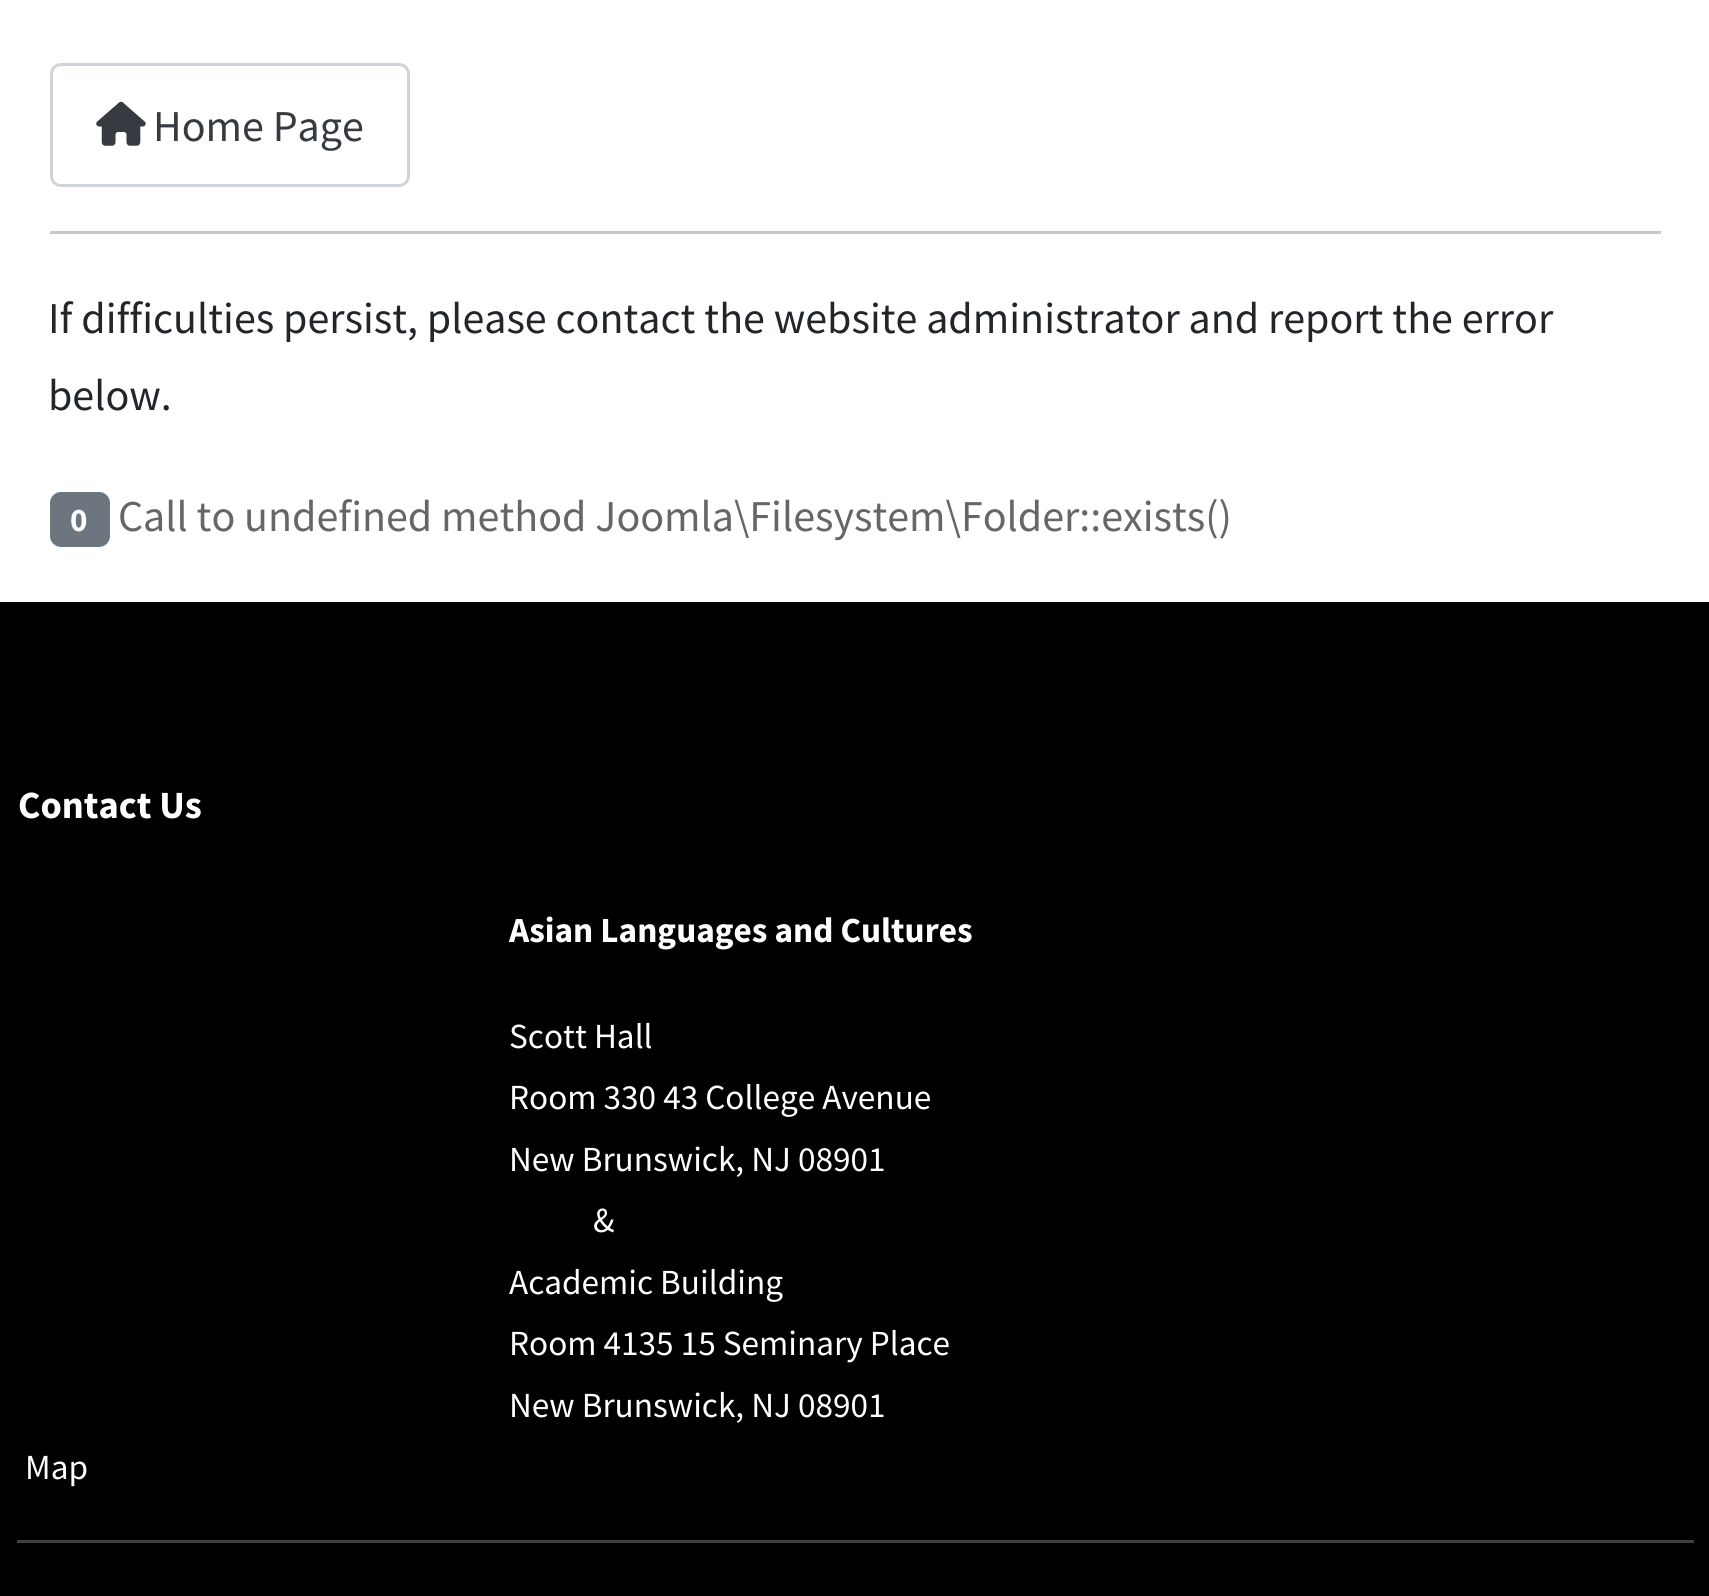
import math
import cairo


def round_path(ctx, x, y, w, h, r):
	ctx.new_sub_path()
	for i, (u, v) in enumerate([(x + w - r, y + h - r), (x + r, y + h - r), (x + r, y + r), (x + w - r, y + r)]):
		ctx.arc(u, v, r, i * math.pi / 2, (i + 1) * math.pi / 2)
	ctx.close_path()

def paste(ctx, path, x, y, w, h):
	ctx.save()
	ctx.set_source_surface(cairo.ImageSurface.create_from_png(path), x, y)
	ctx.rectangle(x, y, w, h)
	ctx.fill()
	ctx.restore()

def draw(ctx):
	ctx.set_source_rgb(1, 1, 1)
	ctx.paint()
	round_path(ctx, 51.5, 64.5, 357, 121, 9.5)
	ctx.set_source_rgb(0.808, 0.831, 0.855)
	ctx.set_line_width(3)
	ctx.stroke()
	paste(ctx, 'media/1.png', 96, 101, 50, 45)
	ctx.select_font_face('Source Sans Pro')
	ctx.set_font_size(44)
	ctx.set_source_rgb(0.208, 0.231, 0.255)
	ctx.move_to(153, 141)
	ctx.show_text('Home Page')
	ctx.set_source_rgb(0.784, 0.788, 0.792)
	ctx.rectangle(50, 231, 1611, 3)
	ctx.fill()
	ctx.set_source_rgb(0.133, 0.149, 0.165)
	ctx.move_to(48, 333)
	ctx.show_text('If difficulties persist, please contact the website administrator and report the error')
	ctx.move_to(48, 410)
	ctx.show_text('below.')
	ctx.set_source_rgb(0.427, 0.459, 0.494)
	round_path(ctx, 50, 492, 60, 55, 11)
	ctx.fill()
	ctx.select_font_face('Source Sans Pro', cairo.FONT_SLANT_NORMAL, cairo.FONT_WEIGHT_BOLD)
	ctx.set_font_size(33)
	ctx.set_source_rgb(1, 1, 1)
	ctx.move_to(70, 531)
	ctx.show_text('0')
	ctx.select_font_face('Source Sans Pro')
	ctx.set_font_size(44)
	ctx.set_source_rgb(0.4, 0.4, 0.4)
	ctx.move_to(118, 531)
	ctx.show_text('Call to undefined method Joomla\\Filesystem\\Folder::exists()')
	ctx.set_source_rgb(0, 0, 0)
	ctx.rectangle(0, 602, 1709, 994)
	ctx.fill()
	ctx.select_font_face('Source Sans Pro', cairo.FONT_SLANT_NORMAL, cairo.FONT_WEIGHT_BOLD)
	ctx.set_font_size(38.5)
	ctx.set_source_rgb(1, 1, 1)
	ctx.move_to(18, 818)
	ctx.show_text('Contact Us')
	ctx.set_font_size(35.25)
	ctx.move_to(509, 942)
	ctx.show_text('Asian Languages and Cultures')
	ctx.select_font_face('Source Sans Pro')
	for x, y, s in [
		(509, 1048, 'Scott Hall'),
		(509, 1109, 'Room 330 43 College Avenue'),
		(509, 1171, 'New Brunswick, NJ 08901'),
		(593, 1232, '&'),
		(509, 1294, 'Academic Building'),
		(509, 1355, 'Room 4135 15 Seminary Place'),
		(509, 1417, 'New Brunswick, NJ 08901'),
		(25, 1479, 'Map'),
	]:
		ctx.move_to(x, y)
		ctx.show_text(s)
	ctx.set_source_rgb(0.251, 0.251, 0.251)
	ctx.rectangle(17, 1540, 1677, 3)
	ctx.fill()


surface = cairo.ImageSurface(cairo.FORMAT_RGB24, 1709, 1596)
ctx = cairo.Context(surface)
options = cairo.FontOptions()
options.set_hint_metrics(cairo.HINT_METRICS_OFF)
options.set_hint_style(cairo.HINT_STYLE_NONE)
ctx.set_font_options(options)
ctx.set_miter_limit(4)
draw(ctx)
surface.write_to_png('image.png')
